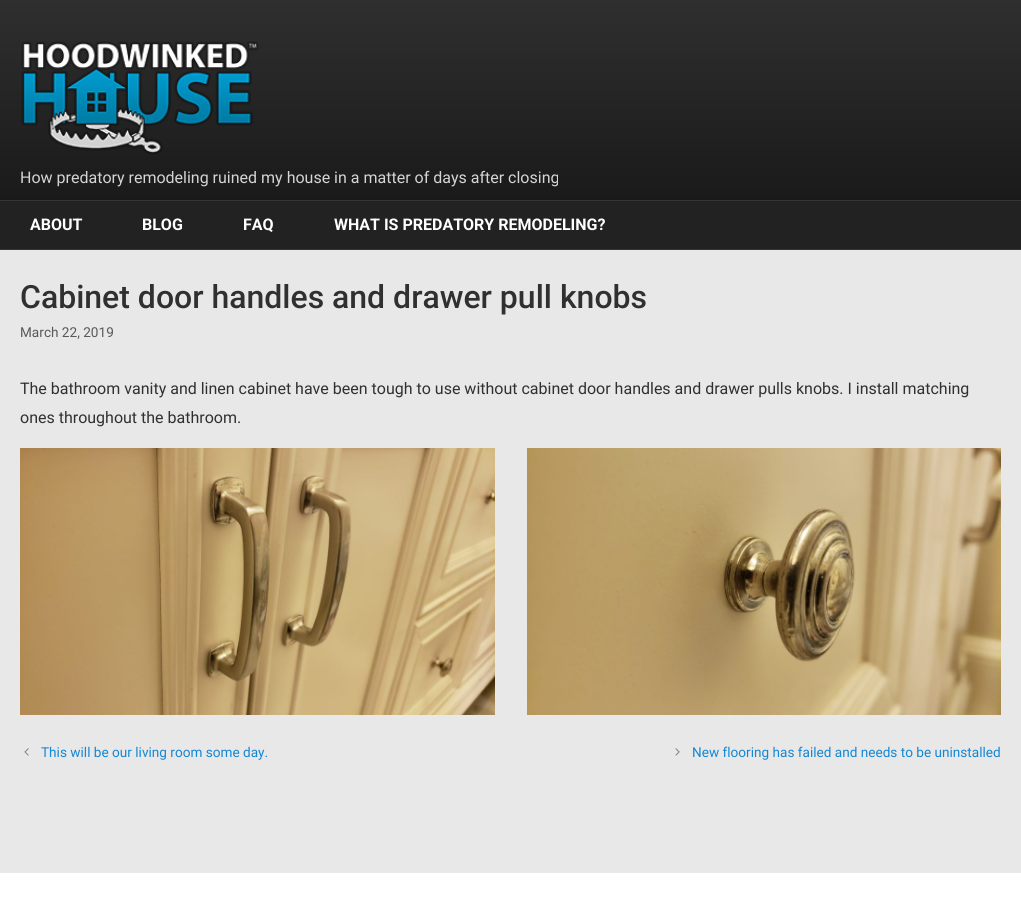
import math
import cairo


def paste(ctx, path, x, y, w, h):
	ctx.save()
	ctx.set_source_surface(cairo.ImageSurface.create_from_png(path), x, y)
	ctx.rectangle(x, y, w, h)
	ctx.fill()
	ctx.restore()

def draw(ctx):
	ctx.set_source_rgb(0.91, 0.91, 0.91)
	ctx.paint()
	gradient = cairo.LinearGradient(511, 0, 511, 200)
	gradient.add_color_stop_rgba(0, 0.184, 0.184, 0.184, 1)
	gradient.add_color_stop_rgba(1, 0.106, 0.102, 0.102, 1)
	ctx.set_source(gradient)
	ctx.rectangle(0, 0, 1021, 200)
	ctx.fill()
	paste(ctx, 'media/1.png', 21, 41, 238, 114)
	ctx.select_font_face('Roboto')
	ctx.set_font_size(16)
	ctx.set_source_rgb(0.835, 0.835, 0.835)
	ctx.move_to(20, 183)
	ctx.show_text('How predatory remodeling ruined my house in a matter of days after closing')
	ctx.set_source_rgb(0.133, 0.133, 0.133)
	ctx.rectangle(0, 201, 1021, 48)
	ctx.fill()
	ctx.set_source_rgb(0.208, 0.208, 0.208)
	ctx.rectangle(0, 200, 1021, 1)
	ctx.rectangle(0, 249, 1021, 1)
	ctx.fill()
	ctx.select_font_face('Roboto', cairo.FONT_SLANT_NORMAL, cairo.FONT_WEIGHT_BOLD)
	ctx.set_source_rgb(1, 1, 1)
	for x, y, s in [
		(30, 230, 'ABOUT'),
		(142, 230, 'BLOG'),
		(243, 230, 'FAQ'),
		(334, 230, 'WHAT IS PREDATORY REMODELING?'),
	]:
		ctx.move_to(x, y)
		ctx.show_text(s)
	ctx.select_font_face('Roboto Medium')
	ctx.set_font_size(32)
	ctx.set_source_rgb(0.188, 0.188, 0.188)
	ctx.move_to(20, 308)
	ctx.show_text('Cabinet door handles and drawer pull knobs')
	ctx.select_font_face('Roboto')
	ctx.set_font_size(13.6)
	ctx.set_source_rgb(0.349, 0.349, 0.349)
	ctx.move_to(20, 337)
	ctx.show_text('March 22, 2019')
	ctx.set_font_size(16)
	ctx.set_source_rgb(0.188, 0.188, 0.188)
	ctx.move_to(20, 394)
	ctx.show_text('The bathroom vanity and linen cabinet have been tough to use without cabinet door handles and drawer pulls knobs. I install matching')
	ctx.move_to(20, 423)
	ctx.show_text('ones throughout the bathroom.')
	paste(ctx, 'media/2.png', 20, 448, 475, 267)
	paste(ctx, 'media/3.png', 527, 448, 474, 267)
	paste(ctx, 'media/4.png', 24, 748, 5, 8)
	ctx.set_font_size(13.6)
	ctx.set_source_rgb(0.078, 0.529, 0.831)
	ctx.move_to(41, 757)
	ctx.show_text('This will be our living room some day.')
	paste(ctx, 'media/5.png', 675, 748, 5, 8)
	ctx.move_to(692, 757)
	ctx.show_text('New flooring has failed and needs to be uninstalled')
	ctx.set_source_rgb(1, 1, 1)
	ctx.rectangle(0, 873, 1021, 25)
	ctx.fill()


surface = cairo.ImageSurface(cairo.FORMAT_RGB24, 1021, 898)
ctx = cairo.Context(surface)
options = cairo.FontOptions()
options.set_hint_metrics(cairo.HINT_METRICS_OFF)
options.set_hint_style(cairo.HINT_STYLE_NONE)
ctx.set_font_options(options)
ctx.set_miter_limit(4)
draw(ctx)
surface.write_to_png('image.png')
